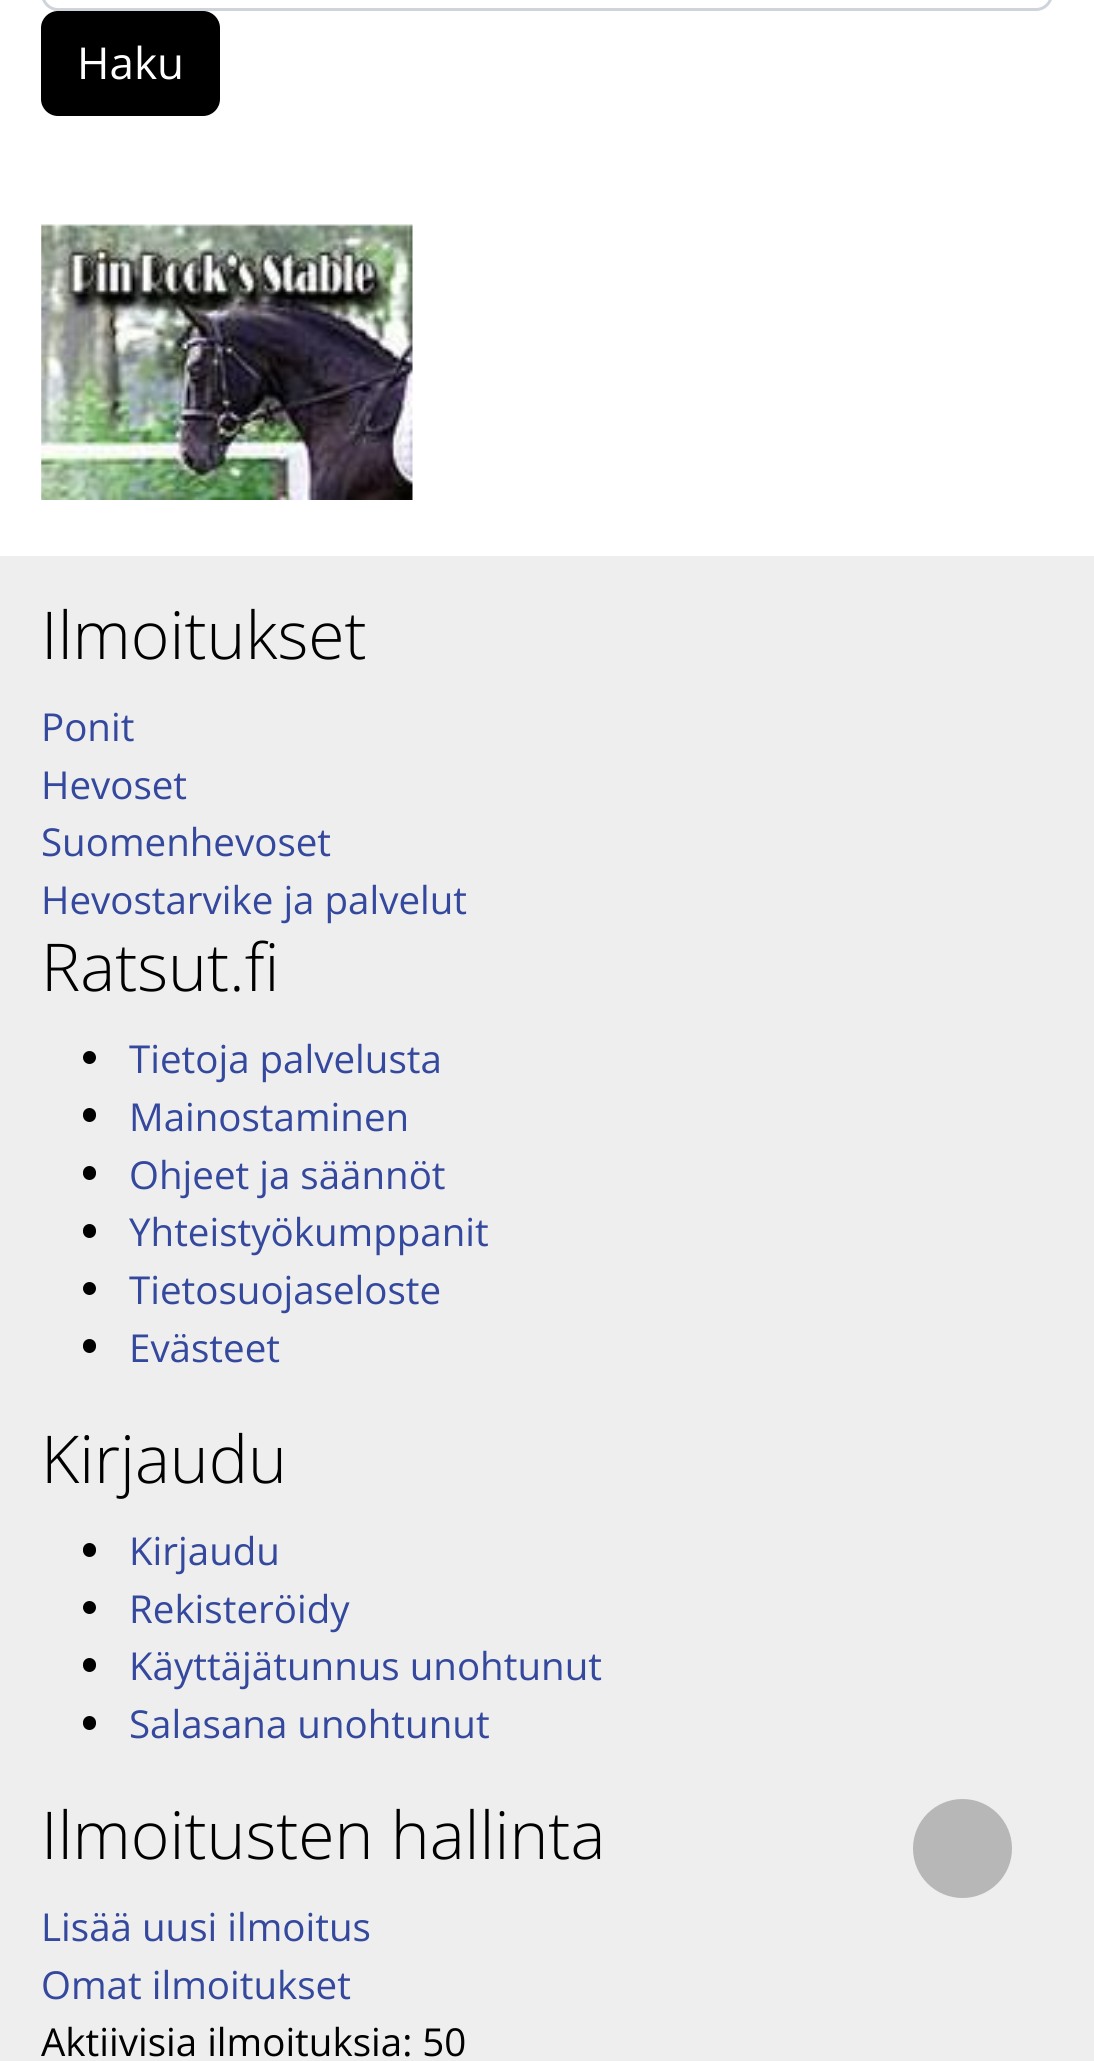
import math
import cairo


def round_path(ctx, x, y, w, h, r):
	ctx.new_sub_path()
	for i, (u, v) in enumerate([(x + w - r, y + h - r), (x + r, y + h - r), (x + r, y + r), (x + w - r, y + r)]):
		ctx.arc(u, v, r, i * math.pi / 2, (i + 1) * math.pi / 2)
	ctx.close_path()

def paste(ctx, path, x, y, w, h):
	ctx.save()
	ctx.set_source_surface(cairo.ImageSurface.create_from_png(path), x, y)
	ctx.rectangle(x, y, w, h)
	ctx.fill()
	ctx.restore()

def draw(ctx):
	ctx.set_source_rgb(1, 1, 1)
	ctx.paint()
	round_path(ctx, 42.5, -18.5, 1009, 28, 15.5)
	ctx.set_source_rgb(0.808, 0.831, 0.855)
	ctx.set_line_width(3)
	ctx.stroke()
	ctx.set_source_rgb(0, 0, 0)
	round_path(ctx, 42.5, 12.5, 176, 102, 15.5)
	ctx.fill_preserve()
	ctx.stroke()
	ctx.select_font_face('Open Sans')
	ctx.set_font_size(44)
	ctx.set_source_rgb(1, 1, 1)
	ctx.move_to(77, 79)
	ctx.show_text('Haku')
	paste(ctx, 'media/1.png', 41, 224, 372, 276)
	ctx.set_source_rgb(0.933, 0.933, 0.933)
	ctx.rectangle(0, 556, 1094, 1505)
	ctx.fill()
	ctx.select_font_face('Open Sans Light')
	ctx.set_font_size(66)
	ctx.set_source_rgb(0, 0, 0)
	ctx.move_to(41, 659)
	ctx.show_text('Ilmoitukset')
	ctx.select_font_face('Open Sans')
	ctx.set_font_size(38.5)
	ctx.set_source_rgb(0.204, 0.282, 0.62)
	for x, y, s in [
		(41, 741, 'Ponit'),
		(41, 799, 'Hevoset'),
		(41, 856, 'Suomenhevoset'),
		(41, 914, 'Hevostarvike ja palvelut'),
	]:
		ctx.move_to(x, y)
		ctx.show_text(s)
	ctx.select_font_face('Open Sans Light')
	ctx.set_font_size(66)
	ctx.set_source_rgb(0, 0, 0)
	ctx.move_to(41, 991)
	ctx.show_text('Ratsut.fi')
	ctx.new_path()
	ctx.arc(89.5, 1057.5, 6.5, 0, 2 * math.pi)
	ctx.fill()
	ctx.select_font_face('Open Sans')
	ctx.set_font_size(38.5)
	ctx.set_source_rgb(0.204, 0.282, 0.62)
	ctx.move_to(129, 1073)
	ctx.show_text('Tietoja palvelusta')
	ctx.set_source_rgb(0, 0, 0)
	round_path(ctx, 83, 1108, 13, 14, 6.5)
	ctx.fill()
	ctx.set_source_rgb(0.204, 0.282, 0.62)
	ctx.move_to(129, 1131)
	ctx.show_text('Mainostaminen')
	ctx.set_source_rgb(0, 0, 0)
	round_path(ctx, 83, 1166, 13, 14, 6.5)
	ctx.fill()
	ctx.set_source_rgb(0.204, 0.282, 0.62)
	ctx.move_to(129, 1189)
	ctx.show_text('Ohjeet ja säännöt')
	ctx.set_source_rgb(0, 0, 0)
	round_path(ctx, 83, 1224, 13, 14, 6.5)
	ctx.fill()
	ctx.set_source_rgb(0.204, 0.282, 0.62)
	ctx.move_to(129, 1246)
	ctx.show_text('Yhteistyökumppanit')
	ctx.set_source_rgb(0, 0, 0)
	ctx.new_path()
	ctx.arc(89.5, 1288.5, 6.5, 0, 2 * math.pi)
	ctx.fill()
	ctx.set_source_rgb(0.204, 0.282, 0.62)
	ctx.move_to(129, 1304)
	ctx.show_text('Tietosuojaseloste')
	ctx.set_source_rgb(0, 0, 0)
	round_path(ctx, 83, 1339, 13, 14, 6.5)
	ctx.fill()
	ctx.set_source_rgb(0.204, 0.282, 0.62)
	ctx.move_to(129, 1362)
	ctx.show_text('Evästeet')
	ctx.select_font_face('Open Sans Light')
	ctx.set_font_size(66)
	ctx.set_source_rgb(0, 0, 0)
	ctx.move_to(41, 1483)
	ctx.show_text('Kirjaudu')
	round_path(ctx, 83, 1543, 13, 14, 6.5)
	ctx.fill()
	ctx.select_font_face('Open Sans')
	ctx.set_font_size(38.5)
	ctx.set_source_rgb(0.204, 0.282, 0.62)
	ctx.move_to(129, 1565)
	ctx.show_text('Kirjaudu')
	ctx.set_source_rgb(0, 0, 0)
	ctx.new_path()
	ctx.arc(89.5, 1607.5, 6.5, 0, 2 * math.pi)
	ctx.fill()
	ctx.set_source_rgb(0.204, 0.282, 0.62)
	ctx.move_to(129, 1623)
	ctx.show_text('Rekisteröidy')
	ctx.set_source_rgb(0, 0, 0)
	round_path(ctx, 83, 1658, 13, 14, 6.5)
	ctx.fill()
	ctx.set_source_rgb(0.204, 0.282, 0.62)
	ctx.move_to(129, 1680)
	ctx.show_text('Käyttäjätunnus unohtunut')
	ctx.set_source_rgb(0, 0, 0)
	round_path(ctx, 83, 1716, 13, 14, 6.5)
	ctx.fill()
	ctx.set_source_rgb(0.204, 0.282, 0.62)
	ctx.move_to(129, 1738)
	ctx.show_text('Salasana unohtunut')
	ctx.select_font_face('Open Sans Light')
	ctx.set_font_size(66)
	ctx.set_source_rgb(0, 0, 0)
	ctx.move_to(41, 1859)
	ctx.show_text('Ilmoitusten hallinta')
	ctx.select_font_face('Open Sans')
	ctx.set_font_size(38.5)
	ctx.set_source_rgb(0.204, 0.282, 0.62)
	ctx.move_to(41, 1941)
	ctx.show_text('Lisää uusi ilmoitus')
	ctx.move_to(41, 1999)
	ctx.show_text('Omat ilmoitukset')
	ctx.set_source_rgb(0, 0, 0)
	ctx.move_to(41, 2056)
	ctx.show_text('Aktiivisia ilmoituksia: 50')
	ctx.set_source_rgb(0.718, 0.718, 0.718)
	ctx.new_path()
	ctx.arc(962.5, 1848.5, 49.5, 0, 2 * math.pi)
	ctx.fill()


surface = cairo.ImageSurface(cairo.FORMAT_RGB24, 1094, 2061)
ctx = cairo.Context(surface)
options = cairo.FontOptions()
options.set_hint_metrics(cairo.HINT_METRICS_OFF)
options.set_hint_style(cairo.HINT_STYLE_NONE)
ctx.set_font_options(options)
ctx.set_miter_limit(4)
draw(ctx)
surface.write_to_png('image.png')
